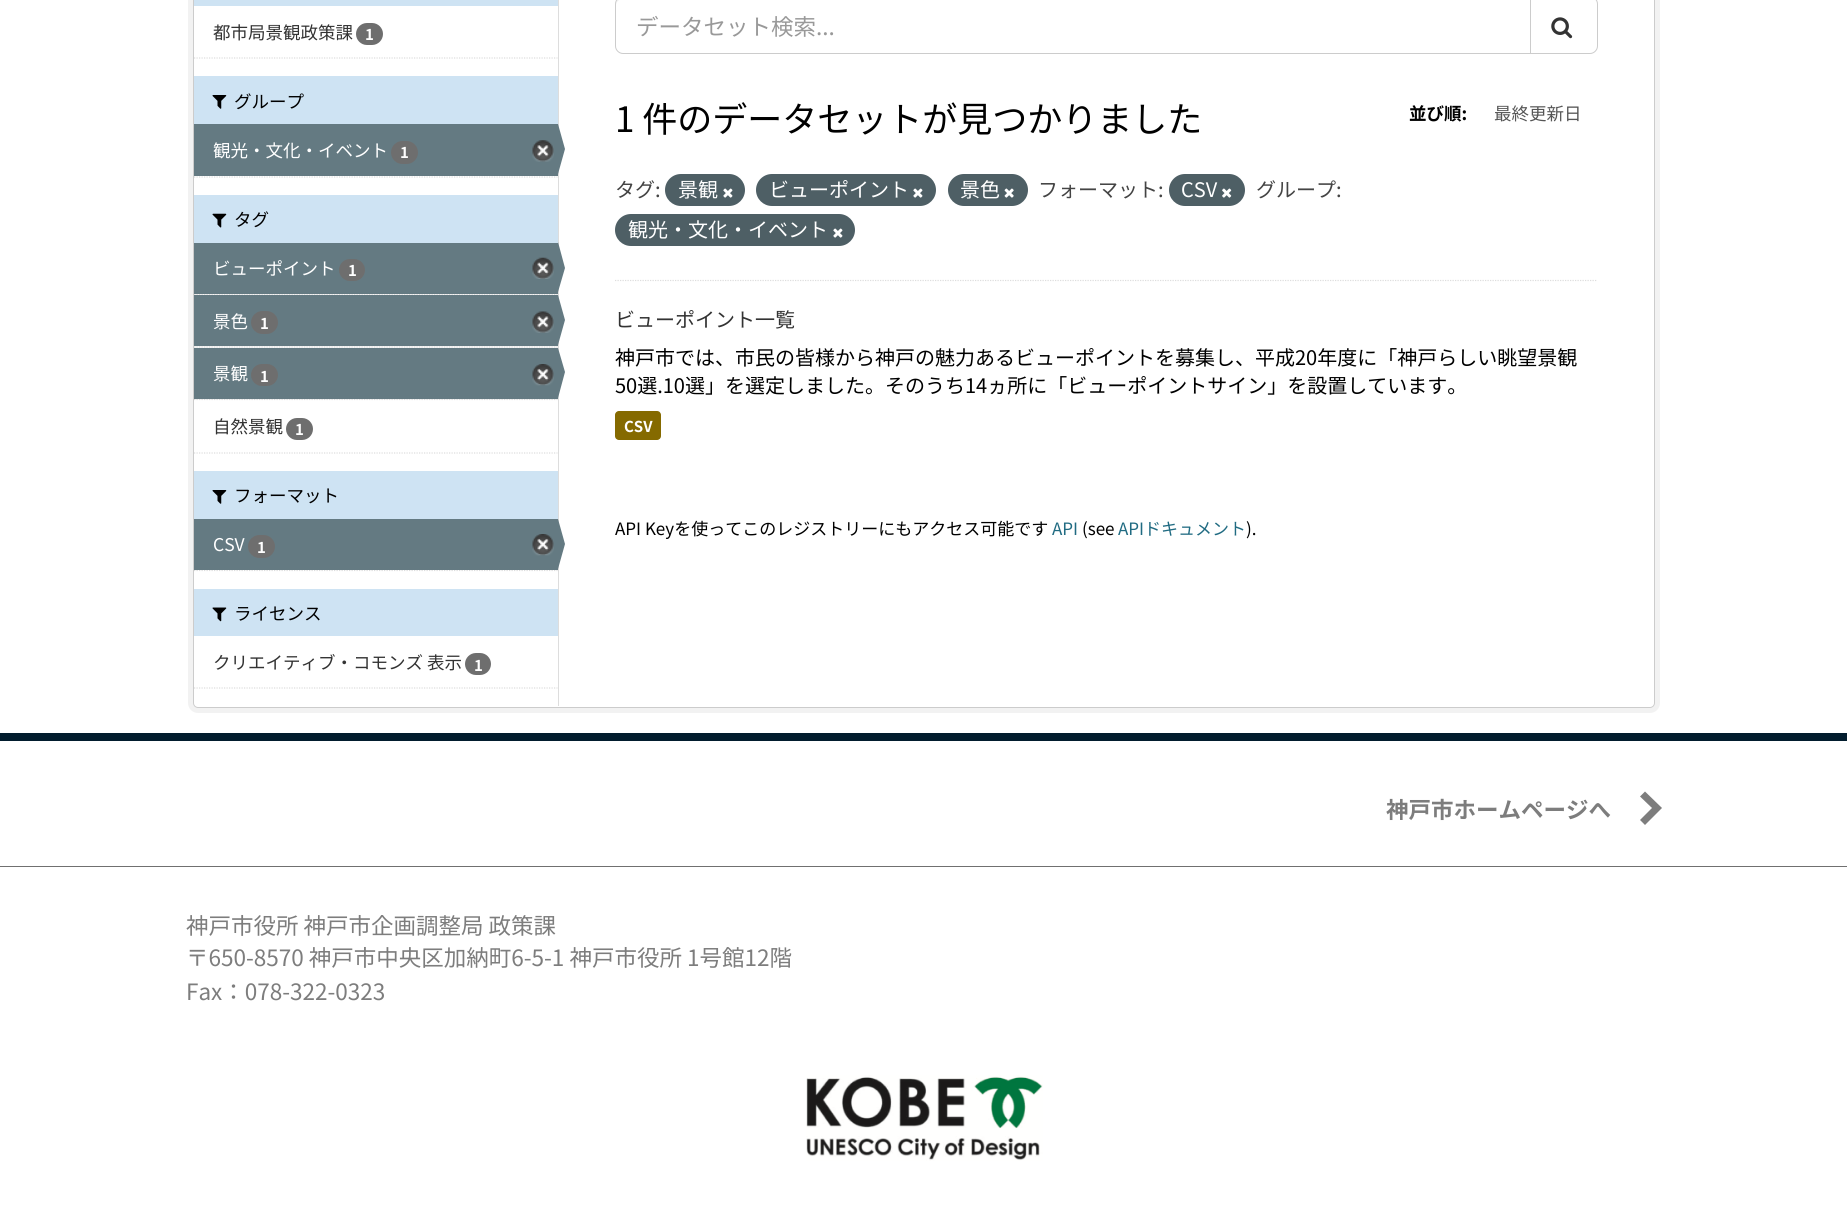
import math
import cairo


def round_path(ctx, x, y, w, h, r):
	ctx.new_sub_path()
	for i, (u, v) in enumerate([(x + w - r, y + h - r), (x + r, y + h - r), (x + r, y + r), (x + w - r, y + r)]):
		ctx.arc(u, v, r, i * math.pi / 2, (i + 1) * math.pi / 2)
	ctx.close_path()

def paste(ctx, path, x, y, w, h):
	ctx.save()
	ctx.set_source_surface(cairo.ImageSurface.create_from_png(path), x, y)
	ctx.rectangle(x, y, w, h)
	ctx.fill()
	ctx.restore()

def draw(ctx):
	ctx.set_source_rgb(1, 1, 1)
	ctx.paint()
	round_path(ctx, 190.5, -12.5, 1467, 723, 7.5)
	ctx.set_source_rgb(0.949, 0.949, 0.949)
	ctx.set_line_width(5)
	ctx.stroke()
	ctx.set_source_rgb(1, 1, 1)
	round_path(ctx, 193.5, -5.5, 1461, 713, 4.5)
	ctx.fill_preserve()
	ctx.set_source_rgb(0.8, 0.8, 0.8)
	ctx.set_line_width(1)
	ctx.stroke()
	ctx.set_source_rgb(0.808, 0.89, 0.953)
	ctx.rectangle(194, 0, 364, 6)
	ctx.fill()
	ctx.select_font_face('Noto Sans JP')
	ctx.set_font_size(17.5)
	ctx.set_source_rgb(0.2, 0.2, 0.2)
	ctx.move_to(213, 39)
	ctx.show_text('都市局景観政策課')
	ctx.set_source_rgb(0.431, 0.431, 0.431)
	round_path(ctx, 356, 23, 27, 22, 11)
	ctx.fill()
	ctx.select_font_face('Noto Sans JP', cairo.FONT_SLANT_NORMAL, cairo.FONT_WEIGHT_BOLD)
	ctx.set_font_size(15)
	ctx.set_source_rgb(1, 1, 1)
	ctx.move_to(365, 40)
	ctx.show_text('1')
	ctx.new_path()
	ctx.move_to(194, 58)
	ctx.line_to(557.5, 58)
	ctx.set_source_rgb(0.867, 0.867, 0.867)
	ctx.set_line_width(1.2)
	ctx.set_dash([1.25, 1.25])
	ctx.stroke()
	ctx.set_source_rgb(0.808, 0.89, 0.953)
	ctx.rectangle(194, 76, 364, 48)
	ctx.fill()
	paste(ctx, 'media/1.png', 212, 95, 15, 14)
	ctx.select_font_face('Noto Sans JP')
	ctx.set_font_size(17.5)
	ctx.set_source_rgb(0, 0, 0)
	ctx.move_to(234, 108)
	ctx.show_text('グループ')
	ctx.set_source_rgb(0.392, 0.478, 0.51)
	ctx.rectangle(194, 124, 364, 52)
	ctx.fill()
	ctx.set_source_rgb(1, 1, 1)
	ctx.move_to(213, 157)
	ctx.show_text('観光・文化・イベント')
	ctx.set_source_rgb(0.431, 0.431, 0.431)
	round_path(ctx, 391, 141, 27, 23, 11.5)
	ctx.fill()
	ctx.select_font_face('Noto Sans JP', cairo.FONT_SLANT_NORMAL, cairo.FONT_WEIGHT_BOLD)
	ctx.set_font_size(15)
	ctx.set_source_rgb(1, 1, 1)
	ctx.move_to(400, 158)
	ctx.show_text('1')
	paste(ctx, 'media/2.png', 532, 140, 22, 22)
	ctx.set_source_rgb(0.867, 0.867, 0.867)
	ctx.rectangle(558, 0, 1, 706)
	ctx.fill()
	ctx.set_source_rgb(0.392, 0.478, 0.51)
	ctx.new_path()
	ctx.move_to(558, 174)
	ctx.line_to(558, 124)
	ctx.line_to(565, 149)
	ctx.close_path()
	ctx.fill()
	ctx.new_path()
	ctx.move_to(194, 177)
	ctx.line_to(557.5, 177)
	ctx.set_source_rgb(0.867, 0.867, 0.867)
	ctx.stroke()
	ctx.set_source_rgb(0.808, 0.89, 0.953)
	ctx.rectangle(194, 195, 364, 48)
	ctx.fill()
	paste(ctx, 'media/3.png', 212, 213, 15, 15)
	ctx.select_font_face('Noto Sans JP')
	ctx.set_font_size(17.5)
	ctx.set_source_rgb(0, 0, 0)
	ctx.move_to(234, 226)
	ctx.show_text('タグ')
	ctx.set_source_rgb(0.965, 0.965, 0.965)
	ctx.rectangle(195, 294, 363, 1)
	ctx.fill()
	ctx.new_path()
	ctx.move_to(194, 294.5)
	ctx.line_to(557.5, 294.5)
	ctx.set_source_rgb(0.867, 0.867, 0.867)
	ctx.stroke()
	ctx.set_source_rgb(0.392, 0.478, 0.51)
	ctx.rectangle(194, 243, 364, 51)
	ctx.fill()
	ctx.set_source_rgb(1, 1, 1)
	ctx.move_to(213, 275)
	ctx.show_text('ビューポイント')
	ctx.set_source_rgb(0.431, 0.431, 0.431)
	round_path(ctx, 339, 259, 26, 22, 11)
	ctx.fill()
	ctx.select_font_face('Noto Sans JP', cairo.FONT_SLANT_NORMAL, cairo.FONT_WEIGHT_BOLD)
	ctx.set_font_size(15)
	ctx.set_source_rgb(1, 1, 1)
	ctx.move_to(348, 276)
	ctx.show_text('1')
	paste(ctx, 'media/4.png', 532, 257, 22, 22)
	ctx.set_source_rgb(0.392, 0.478, 0.51)
	ctx.new_path()
	ctx.move_to(558, 292)
	ctx.line_to(558, 242)
	ctx.line_to(565, 268)
	ctx.close_path()
	ctx.fill()
	ctx.set_source_rgb(0.965, 0.965, 0.965)
	ctx.rectangle(194, 346, 364, 2)
	ctx.fill()
	ctx.new_path()
	ctx.move_to(194, 347)
	ctx.line_to(557.5, 347)
	ctx.set_source_rgb(0.867, 0.867, 0.867)
	ctx.stroke()
	ctx.set_source_rgb(0.392, 0.478, 0.51)
	ctx.rectangle(194, 295, 364, 51)
	ctx.fill()
	ctx.select_font_face('Noto Sans JP')
	ctx.set_font_size(17.5)
	ctx.set_source_rgb(1, 1, 1)
	ctx.move_to(213, 328)
	ctx.show_text('景色')
	ctx.set_source_rgb(0.431, 0.431, 0.431)
	round_path(ctx, 251, 311, 27, 23, 11.5)
	ctx.fill()
	ctx.select_font_face('Noto Sans JP', cairo.FONT_SLANT_NORMAL, cairo.FONT_WEIGHT_BOLD)
	ctx.set_font_size(15)
	ctx.set_source_rgb(1, 1, 1)
	ctx.move_to(260, 329)
	ctx.show_text('1')
	paste(ctx, 'media/5.png', 532, 311, 22, 22)
	ctx.set_source_rgb(0.392, 0.478, 0.51)
	ctx.new_path()
	ctx.move_to(558, 345)
	ctx.line_to(558, 295)
	ctx.line_to(565, 320)
	ctx.close_path()
	ctx.fill()
	ctx.set_source_rgb(0.965, 0.965, 0.965)
	ctx.rectangle(195, 399, 363, 1)
	ctx.fill()
	ctx.new_path()
	ctx.move_to(194, 399.5)
	ctx.line_to(557.5, 399.5)
	ctx.set_source_rgb(0.867, 0.867, 0.867)
	ctx.stroke()
	ctx.set_source_rgb(0.392, 0.478, 0.51)
	ctx.rectangle(194, 348, 364, 51)
	ctx.fill()
	ctx.select_font_face('Noto Sans JP')
	ctx.set_font_size(17.5)
	ctx.set_source_rgb(1, 1, 1)
	ctx.move_to(213, 380)
	ctx.show_text('景観')
	ctx.set_source_rgb(0.431, 0.431, 0.431)
	round_path(ctx, 251, 364, 27, 22, 11)
	ctx.fill()
	ctx.select_font_face('Noto Sans JP', cairo.FONT_SLANT_NORMAL, cairo.FONT_WEIGHT_BOLD)
	ctx.set_font_size(15)
	ctx.set_source_rgb(1, 1, 1)
	ctx.move_to(260, 382)
	ctx.show_text('1')
	paste(ctx, 'media/6.png', 532, 364, 22, 22)
	ctx.set_source_rgb(0.392, 0.478, 0.51)
	ctx.new_path()
	ctx.move_to(558, 398)
	ctx.line_to(558, 348)
	ctx.line_to(565, 372)
	ctx.close_path()
	ctx.fill()
	ctx.select_font_face('Noto Sans JP')
	ctx.set_font_size(17.5)
	ctx.set_source_rgb(0.2, 0.2, 0.2)
	ctx.move_to(213, 433)
	ctx.show_text('自然景観')
	ctx.set_source_rgb(0.431, 0.431, 0.431)
	round_path(ctx, 286, 418, 27, 22, 11)
	ctx.fill()
	ctx.select_font_face('Noto Sans JP', cairo.FONT_SLANT_NORMAL, cairo.FONT_WEIGHT_BOLD)
	ctx.set_font_size(15)
	ctx.set_source_rgb(1, 1, 1)
	ctx.move_to(295, 435)
	ctx.show_text('1')
	ctx.new_path()
	ctx.move_to(194, 453)
	ctx.line_to(557.5, 453)
	ctx.set_source_rgb(0.867, 0.867, 0.867)
	ctx.stroke()
	ctx.set_source_rgb(0.808, 0.89, 0.953)
	ctx.rectangle(194, 471, 364, 48)
	ctx.fill()
	paste(ctx, 'media/1.png', 212, 490, 15, 14)
	ctx.select_font_face('Noto Sans JP')
	ctx.set_font_size(17.5)
	ctx.set_source_rgb(0, 0, 0)
	ctx.move_to(234, 502)
	ctx.show_text('フォーマット')
	ctx.new_path()
	ctx.move_to(194, 570.5)
	ctx.line_to(557.5, 570.5)
	ctx.set_source_rgb(0.867, 0.867, 0.867)
	ctx.stroke()
	ctx.set_source_rgb(0.392, 0.478, 0.51)
	ctx.rectangle(194, 519, 364, 51)
	ctx.fill()
	ctx.set_source_rgb(1, 1, 1)
	ctx.move_to(213, 551)
	ctx.show_text('CSV')
	ctx.set_source_rgb(0.431, 0.431, 0.431)
	round_path(ctx, 248, 535, 27, 23, 11.5)
	ctx.fill()
	ctx.select_font_face('Noto Sans JP', cairo.FONT_SLANT_NORMAL, cairo.FONT_WEIGHT_BOLD)
	ctx.set_font_size(15)
	ctx.set_source_rgb(1, 1, 1)
	ctx.move_to(257, 553)
	ctx.show_text('1')
	paste(ctx, 'media/6.png', 532, 534, 22, 22)
	ctx.set_source_rgb(0.392, 0.478, 0.51)
	ctx.new_path()
	ctx.move_to(558, 569)
	ctx.line_to(558, 519)
	ctx.line_to(565, 544)
	ctx.close_path()
	ctx.fill()
	ctx.set_source_rgb(0.808, 0.89, 0.953)
	ctx.rectangle(194, 589, 364, 47)
	ctx.fill()
	paste(ctx, 'media/7.png', 212, 607, 15, 15)
	ctx.select_font_face('Noto Sans JP')
	ctx.set_font_size(17.5)
	ctx.set_source_rgb(0, 0, 0)
	ctx.move_to(234, 620)
	ctx.show_text('ライセンス')
	ctx.set_source_rgb(0.2, 0.2, 0.2)
	ctx.move_to(213, 669)
	ctx.show_text('クリエイティブ・コモンズ 表示')
	ctx.set_source_rgb(0.431, 0.431, 0.431)
	round_path(ctx, 465, 653, 26, 22, 11)
	ctx.fill()
	ctx.select_font_face('Noto Sans JP', cairo.FONT_SLANT_NORMAL, cairo.FONT_WEIGHT_BOLD)
	ctx.set_font_size(15)
	ctx.set_source_rgb(1, 1, 1)
	ctx.move_to(474, 671)
	ctx.show_text('1')
	ctx.new_path()
	ctx.move_to(194, 688)
	ctx.line_to(557.5, 688)
	ctx.set_source_rgb(0.867, 0.867, 0.867)
	ctx.stroke()
	ctx.new_path()
	ctx.move_to(615, 280.5)
	ctx.line_to(1597.5, 280.5)
	ctx.stroke()
	ctx.set_source_rgb(0.925, 0.925, 0.925)
	ctx.new_path()
	ctx.move_to(622, -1)
	ctx.line_to(1530, -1)
	ctx.line_to(1530, -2)
	ctx.line_to(622, -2)
	ctx.curve_to(619, -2, 616, 1, 616, 4)
	ctx.line_to(616, 5)
	ctx.curve_to(616, 2, 619, -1, 622, -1)
	ctx.close_path()
	ctx.fill()
	ctx.new_path()
	ctx.move_to(623, -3.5)
	ctx.line_to(1530.5, -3.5)
	ctx.line_to(1530.5, 53.5)
	ctx.line_to(623, 53.5)
	ctx.curve_to(619, 53.5, 615.5, 50, 615.5, 46)
	ctx.line_to(615.5, 4)
	ctx.curve_to(615.5, 0, 619, -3.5, 623, -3.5)
	ctx.close_path()
	ctx.set_source_rgb(0.8, 0.8, 0.8)
	ctx.set_line_width(1)
	ctx.set_dash([])
	ctx.stroke()
	ctx.select_font_face('Noto Sans JP')
	ctx.set_font_size(22.5)
	ctx.set_source_rgb(0.6, 0.6, 0.6)
	ctx.move_to(636, 35)
	ctx.show_text('データセット検索...')
	ctx.set_source_rgb(1, 1, 1)
	ctx.new_path()
	ctx.move_to(1530.5, -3.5)
	ctx.line_to(1590, -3.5)
	ctx.curve_to(1594, -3.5, 1597.5, 0, 1597.5, 4)
	ctx.line_to(1597.5, 46)
	ctx.curve_to(1597.5, 50, 1594, 53.5, 1590, 53.5)
	ctx.line_to(1530.5, 53.5)
	ctx.close_path()
	ctx.fill_preserve()
	ctx.set_source_rgb(0.8, 0.8, 0.8)
	ctx.stroke()
	paste(ctx, 'media/8.png', 1551, 17, 22, 22)
	ctx.set_font_size(35)
	ctx.set_source_rgb(0, 0, 0)
	ctx.move_to(615, 132)
	ctx.show_text('1 件のデータセットが見つかりました')
	ctx.select_font_face('Noto Sans JP', cairo.FONT_SLANT_NORMAL, cairo.FONT_WEIGHT_BOLD)
	ctx.set_font_size(17.5)
	ctx.move_to(1409, 120)
	ctx.show_text('並び順:')
	ctx.select_font_face('Noto Sans JP')
	ctx.set_source_rgb(0.333, 0.333, 0.333)
	ctx.move_to(1494, 120)
	ctx.show_text('最終更新日')
	ctx.set_font_size(20)
	ctx.set_source_rgb(0.267, 0.267, 0.267)
	ctx.move_to(615, 197)
	ctx.show_text('タグ:')
	ctx.set_source_rgb(0.306, 0.373, 0.396)
	round_path(ctx, 665, 174, 80, 32, 16)
	ctx.fill()
	ctx.set_source_rgb(1, 1, 1)
	ctx.move_to(678, 197)
	ctx.show_text('景観')
	paste(ctx, 'media/9.png', 723, 188, 10, 10)
	ctx.set_source_rgb(0.306, 0.373, 0.396)
	round_path(ctx, 756, 174, 180, 32, 16)
	ctx.fill()
	ctx.set_source_rgb(1, 1, 1)
	ctx.move_to(769, 197)
	ctx.show_text('ビューポイント')
	paste(ctx, 'media/9.png', 913, 188, 10, 10)
	ctx.set_source_rgb(0.306, 0.373, 0.396)
	round_path(ctx, 948, 174, 80, 32, 16)
	ctx.fill()
	ctx.set_source_rgb(1, 1, 1)
	ctx.move_to(960, 197)
	ctx.show_text('景色')
	paste(ctx, 'media/10.png', 1004, 188, 10, 10)
	ctx.set_source_rgb(0.267, 0.267, 0.267)
	ctx.move_to(1038, 197)
	ctx.show_text('フォーマット:')
	ctx.set_source_rgb(0.306, 0.373, 0.396)
	round_path(ctx, 1169, 174, 76, 32, 16)
	ctx.fill()
	ctx.set_source_rgb(1, 1, 1)
	ctx.move_to(1181, 197)
	ctx.show_text('CSV')
	paste(ctx, 'media/11.png', 1222, 188, 10, 10)
	ctx.set_source_rgb(0.267, 0.267, 0.267)
	ctx.move_to(1256, 197)
	ctx.show_text('グループ:')
	ctx.set_source_rgb(0.306, 0.373, 0.396)
	round_path(ctx, 615, 214, 240, 32, 16)
	ctx.fill()
	ctx.set_source_rgb(1, 1, 1)
	ctx.move_to(628, 237)
	ctx.show_text('観光・文化・イベント')
	paste(ctx, 'media/9.png', 833, 228, 10, 10)
	ctx.set_source_rgb(0.2, 0.2, 0.2)
	ctx.move_to(615, 327)
	ctx.show_text('ビューポイント一覧')
	ctx.set_source_rgb(0, 0, 0)
	ctx.move_to(615, 365)
	ctx.show_text('神戸市では、市民の皆様から神戸の魅力あるビューポイントを募集し、平成20年度に「神戸らしい眺望景観')
	ctx.move_to(615, 393)
	ctx.show_text('50選.10選」を選定しました。そのうち14ヵ所に「ビューポイントサイン」を設置しています。')
	ctx.set_source_rgb(0.522, 0.416, 0)
	round_path(ctx, 615, 411, 46, 29, 4)
	ctx.fill()
	ctx.select_font_face('Noto Sans JP', cairo.FONT_SLANT_NORMAL, cairo.FONT_WEIGHT_BOLD)
	ctx.set_font_size(15)
	ctx.set_source_rgb(1, 1, 1)
	ctx.move_to(624, 432)
	ctx.show_text('CSV')
	ctx.select_font_face('Noto Sans JP')
	ctx.set_font_size(17)
	ctx.set_source_rgb(0, 0, 0)
	ctx.move_to(615, 535)
	ctx.show_text('API Keyを使ってこのレジストリーにもアクセス可能です')
	ctx.set_source_rgb(0.125, 0.42, 0.51)
	ctx.move_to(1052, 535)
	ctx.show_text('API')
	ctx.set_source_rgb(0, 0, 0)
	ctx.move_to(1082, 535)
	ctx.show_text('(see')
	ctx.set_source_rgb(0.125, 0.42, 0.51)
	ctx.move_to(1118, 535)
	ctx.show_text('APIドキュメント')
	ctx.set_source_rgb(0, 0, 0)
	ctx.move_to(1246, 535)
	ctx.show_text(').')
	ctx.set_source_rgb(0.008, 0.114, 0.18)
	ctx.rectangle(0, 733, 1847, 8)
	ctx.fill()
	ctx.set_source_rgb(0.49, 0.49, 0.49)
	ctx.new_path()
	ctx.move_to(1662, 808)
	ctx.line_to(1645, 825)
	ctx.line_to(1640, 820)
	ctx.line_to(1652, 808)
	ctx.line_to(1640, 796.5)
	ctx.line_to(1645, 791.5)
	ctx.close_path()
	ctx.fill()
	ctx.select_font_face('Noto Sans JP', cairo.FONT_SLANT_NORMAL, cairo.FONT_WEIGHT_BOLD)
	ctx.set_font_size(22.5)
	ctx.move_to(1386, 818)
	ctx.show_text('神戸市ホームページへ')
	ctx.set_source_rgb(0.439, 0.439, 0.439)
	ctx.rectangle(0, 866, 1847, 1)
	ctx.fill()
	ctx.select_font_face('Noto Sans JP')
	ctx.set_source_rgb(0.49, 0.49, 0.49)
	for x, y, s in [
		(186, 934, '神戸市役所 神戸市企画調整局 政策課'),
		(186, 966, '〒650-8570 神戸市中央区加納町6-5-1 神戸市役所 1号館12階'),
		(186, 1000, 'Fax：078-322-0323'),
	]:
		ctx.move_to(x, y)
		ctx.show_text(s)
	paste(ctx, 'media/12.png', 806, 1075, 237, 86)


surface = cairo.ImageSurface(cairo.FORMAT_RGB24, 1847, 1217)
ctx = cairo.Context(surface)
options = cairo.FontOptions()
options.set_hint_metrics(cairo.HINT_METRICS_OFF)
options.set_hint_style(cairo.HINT_STYLE_NONE)
ctx.set_font_options(options)
ctx.set_miter_limit(4)
draw(ctx)
surface.write_to_png('image.png')
